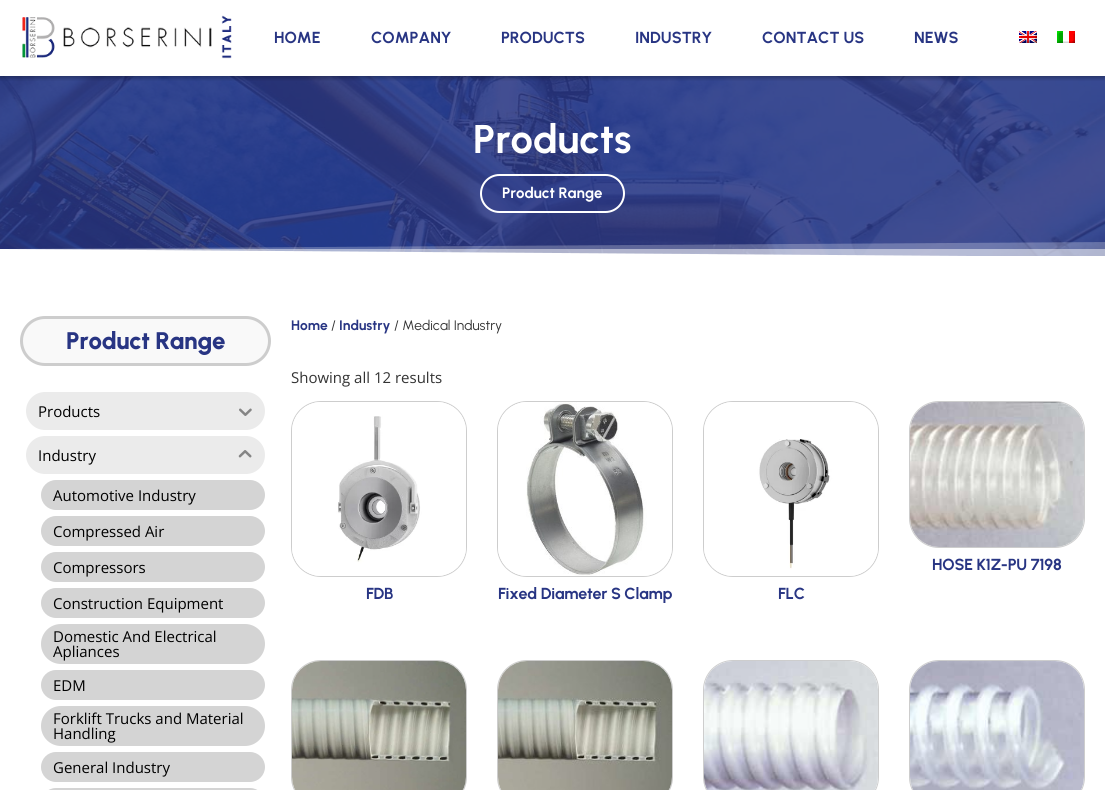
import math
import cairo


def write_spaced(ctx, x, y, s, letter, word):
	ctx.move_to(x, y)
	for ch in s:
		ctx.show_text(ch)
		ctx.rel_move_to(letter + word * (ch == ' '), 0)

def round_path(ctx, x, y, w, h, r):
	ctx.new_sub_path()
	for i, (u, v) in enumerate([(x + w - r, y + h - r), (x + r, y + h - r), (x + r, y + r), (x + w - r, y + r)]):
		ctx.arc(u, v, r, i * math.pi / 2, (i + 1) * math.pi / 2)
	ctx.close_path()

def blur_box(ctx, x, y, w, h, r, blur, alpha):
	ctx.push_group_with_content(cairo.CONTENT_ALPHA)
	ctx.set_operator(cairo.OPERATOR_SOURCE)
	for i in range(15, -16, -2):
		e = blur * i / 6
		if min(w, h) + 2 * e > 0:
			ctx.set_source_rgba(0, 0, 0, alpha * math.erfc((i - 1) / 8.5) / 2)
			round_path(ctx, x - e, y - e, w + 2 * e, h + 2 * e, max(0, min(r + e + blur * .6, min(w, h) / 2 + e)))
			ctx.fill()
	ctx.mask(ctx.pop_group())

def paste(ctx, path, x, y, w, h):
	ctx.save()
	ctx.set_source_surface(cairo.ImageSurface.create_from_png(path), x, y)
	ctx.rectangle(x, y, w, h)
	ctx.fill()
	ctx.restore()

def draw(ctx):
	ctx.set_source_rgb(1, 1, 1)
	ctx.paint()
	paste(ctx, 'media/4.png', 0, 76, 1105, 180)
	ctx.save()
	ctx.rectangle(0, 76, 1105, 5)
	ctx.clip()
	ctx.set_source_rgb(0, 0, 0)
	blur_box(ctx, 0, 2, 1105, 76, 0, 2, 0.3)
	ctx.restore()
	paste(ctx, 'media/1.png', 22, 15, 210, 44)
	ctx.select_font_face('Urbanist', cairo.FONT_SLANT_NORMAL, cairo.FONT_WEIGHT_BOLD)
	ctx.set_font_size(16)
	ctx.set_source_rgb(0.157, 0.208, 0.514)
	for x, y, s in [
		(274, 43, 'HOME'),
		(371, 43, 'COMPANY'),
		(501, 43, 'PRODUCTS'),
		(635, 43, 'INDUSTRY'),
		(762, 43, 'CONTACT US'),
		(914, 43, 'NEWS'),
	]:
		ctx.move_to(x, y)
		ctx.show_text(s)
	paste(ctx, 'media/2.png', 1019, 31, 18, 12)
	paste(ctx, 'media/3.png', 1057, 31, 18, 12)
	ctx.set_font_size(40)
	ctx.set_source_rgb(1, 1, 1)
	ctx.move_to(473, 153)
	ctx.show_text('Products')
	ctx.set_source_rgba(0.161, 0.208, 0.514, 0.33)
	round_path(ctx, 481, 175, 143, 37, 18.5)
	ctx.fill_preserve()
	ctx.set_source_rgb(1, 1, 1)
	ctx.stroke()
	ctx.set_font_size(15)
	ctx.move_to(502, 198)
	ctx.show_text('Product Range')
	ctx.new_path()
	ctx.move_to(1105, 257)
	ctx.line_to(-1, 257)
	ctx.line_to(-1, 249)
	ctx.close_path()
	ctx.fill()
	ctx.set_source_rgba(1, 1, 1, 0.5)
	ctx.rectangle(0, 249, 1105, 7)
	ctx.fill()
	ctx.set_source_rgba(1, 1, 1, 0.25)
	ctx.new_path()
	ctx.move_to(-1, 257)
	ctx.line_to(1105, 257)
	ctx.line_to(1105, 242)
	ctx.line_to(-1, 249)
	ctx.close_path()
	ctx.fill()
	ctx.set_source_rgb(0.973, 0.973, 0.973)
	round_path(ctx, 21.5, 317.5, 248, 47, 23.5)
	ctx.fill_preserve()
	ctx.set_source_rgb(0.804, 0.804, 0.804)
	ctx.set_line_width(3)
	ctx.stroke()
	ctx.select_font_face('Urbanist ExtraBold')
	ctx.set_font_size(24)
	ctx.set_source_rgb(0.157, 0.208, 0.514)
	write_spaced(ctx, 66, 349, 'Product Range', -0.25, 0)
	ctx.set_source_rgb(0.918, 0.918, 0.918)
	round_path(ctx, 26, 392, 239, 38, 19)
	ctx.fill()
	ctx.select_font_face('Open Sans')
	ctx.set_font_size(15)
	ctx.set_source_rgb(0, 0, 0)
	ctx.move_to(38, 417)
	ctx.show_text('Products')
	paste(ctx, 'media/5.png', 239, 408, 13, 8)
	ctx.set_source_rgb(0.918, 0.918, 0.918)
	round_path(ctx, 26, 436, 239, 38, 19)
	ctx.fill()
	ctx.set_source_rgb(0, 0, 0)
	ctx.move_to(38, 461)
	ctx.show_text('Industry')
	paste(ctx, 'media/6.png', 238, 450, 14, 8)
	ctx.set_source_rgb(0.831, 0.831, 0.831)
	round_path(ctx, 41, 480, 224, 30, 15)
	ctx.fill()
	ctx.set_source_rgb(0, 0, 0)
	ctx.move_to(53, 501)
	ctx.show_text('Automotive Industry')
	ctx.set_source_rgb(0.831, 0.831, 0.831)
	round_path(ctx, 41, 516, 224, 30, 15)
	ctx.fill()
	ctx.set_source_rgb(0, 0, 0)
	ctx.move_to(53, 537)
	ctx.show_text('Compressed Air')
	ctx.set_source_rgb(0.831, 0.831, 0.831)
	round_path(ctx, 41, 552, 224, 30, 15)
	ctx.fill()
	ctx.set_source_rgb(0, 0, 0)
	ctx.move_to(53, 573)
	ctx.show_text('Compressors')
	ctx.set_source_rgb(0.831, 0.831, 0.831)
	round_path(ctx, 41, 588, 224, 30, 15)
	ctx.fill()
	ctx.set_source_rgb(0, 0, 0)
	ctx.move_to(53, 609)
	ctx.show_text('Construction Equipment')
	ctx.set_source_rgb(0.831, 0.831, 0.831)
	round_path(ctx, 41, 624, 224, 40, 20)
	ctx.fill()
	ctx.set_source_rgb(0, 0, 0)
	ctx.move_to(53, 642)
	ctx.show_text('Domestic And Electrical')
	ctx.move_to(53, 657)
	ctx.show_text('Apliances')
	ctx.set_source_rgb(0.831, 0.831, 0.831)
	round_path(ctx, 41, 670, 224, 30, 15)
	ctx.fill()
	ctx.set_source_rgb(0, 0, 0)
	ctx.move_to(53, 691)
	ctx.show_text('EDM')
	ctx.set_source_rgb(0.831, 0.831, 0.831)
	round_path(ctx, 41, 706, 224, 40, 20)
	ctx.fill()
	ctx.set_source_rgb(0, 0, 0)
	ctx.move_to(53, 724)
	ctx.show_text('Forklift Trucks and Material')
	ctx.move_to(53, 739)
	ctx.show_text('Handling')
	ctx.set_source_rgb(0.831, 0.831, 0.831)
	round_path(ctx, 41, 752, 224, 30, 15)
	ctx.fill()
	ctx.set_source_rgb(0, 0, 0)
	ctx.move_to(53, 773)
	ctx.show_text('General Industry')
	ctx.set_source_rgb(0.831, 0.831, 0.831)
	round_path(ctx, 41, 788, 224, 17, 15)
	ctx.fill()
	ctx.select_font_face('Urbanist', cairo.FONT_SLANT_NORMAL, cairo.FONT_WEIGHT_BOLD)
	ctx.set_font_size(13.75)
	ctx.set_source_rgb(0.157, 0.208, 0.514)
	ctx.move_to(291, 330)
	ctx.show_text('Home')
	ctx.select_font_face('Urbanist')
	ctx.set_source_rgb(0.2, 0.2, 0.2)
	ctx.move_to(331, 330)
	ctx.show_text('/')
	ctx.select_font_face('Urbanist', cairo.FONT_SLANT_NORMAL, cairo.FONT_WEIGHT_BOLD)
	ctx.set_source_rgb(0.157, 0.208, 0.514)
	ctx.move_to(339, 330)
	ctx.show_text('Industry')
	ctx.select_font_face('Urbanist')
	ctx.set_source_rgb(0.2, 0.2, 0.2)
	ctx.move_to(394, 330)
	ctx.show_text('/ Medical Industry')
	ctx.select_font_face('Open Sans')
	ctx.set_font_size(15)
	ctx.move_to(291, 383)
	ctx.show_text('Showing all 12 results')
	round_path(ctx, 909.5, 401.5, 175, 146, 29.5)
	ctx.set_source_rgb(0.804, 0.804, 0.804)
	ctx.set_line_width(1)
	ctx.stroke()
	paste(ctx, 'media/7.png', 910, 402, 174, 145)
	ctx.select_font_face('Urbanist', cairo.FONT_SLANT_NORMAL, cairo.FONT_WEIGHT_BOLD)
	ctx.set_font_size(16)
	ctx.set_source_rgb(0.157, 0.208, 0.514)
	write_spaced(ctx, 932, 570, 'HOSE K1Z-PU 7198', -0.2, 0)
	round_path(ctx, 291.5, 401.5, 175, 175, 29.5)
	ctx.set_source_rgb(0.804, 0.804, 0.804)
	ctx.stroke()
	paste(ctx, 'media/8.png', 292, 402, 174, 174)
	ctx.set_source_rgb(0.157, 0.208, 0.514)
	write_spaced(ctx, 366, 599, 'FDB', -0.2, 0)
	round_path(ctx, 497.5, 401.5, 175, 175, 29.5)
	ctx.set_source_rgb(0.804, 0.804, 0.804)
	ctx.stroke()
	paste(ctx, 'media/9.png', 498, 402, 174, 174)
	ctx.set_source_rgb(0.157, 0.208, 0.514)
	write_spaced(ctx, 498, 599, 'Fixed Diameter S Clamp', -0.2, 0)
	round_path(ctx, 703.5, 401.5, 175, 175, 29.5)
	ctx.set_source_rgb(0.804, 0.804, 0.804)
	ctx.stroke()
	paste(ctx, 'media/10.png', 704, 402, 174, 174)
	ctx.set_source_rgb(0.157, 0.208, 0.514)
	write_spaced(ctx, 778, 599, 'FLC', -0.2, 0)
	round_path(ctx, 291.5, 660.5, 175, 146, 29.5)
	ctx.set_source_rgb(0.804, 0.804, 0.804)
	ctx.stroke()
	paste(ctx, 'media/11.png', 292, 661, 174, 129)
	round_path(ctx, 497.5, 660.5, 175, 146, 29.5)
	ctx.stroke()
	paste(ctx, 'media/12.png', 498, 661, 174, 129)
	round_path(ctx, 703.5, 660.5, 175, 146, 29.5)
	ctx.stroke()
	paste(ctx, 'media/13.png', 704, 661, 174, 129)
	round_path(ctx, 909.5, 660.5, 175, 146, 29.5)
	ctx.stroke()
	paste(ctx, 'media/14.png', 910, 661, 174, 129)


surface = cairo.ImageSurface(cairo.FORMAT_RGB24, 1105, 790)
ctx = cairo.Context(surface)
options = cairo.FontOptions()
options.set_hint_metrics(cairo.HINT_METRICS_OFF)
options.set_hint_style(cairo.HINT_STYLE_NONE)
ctx.set_font_options(options)
ctx.set_miter_limit(4)
draw(ctx)
surface.write_to_png('image.png')
